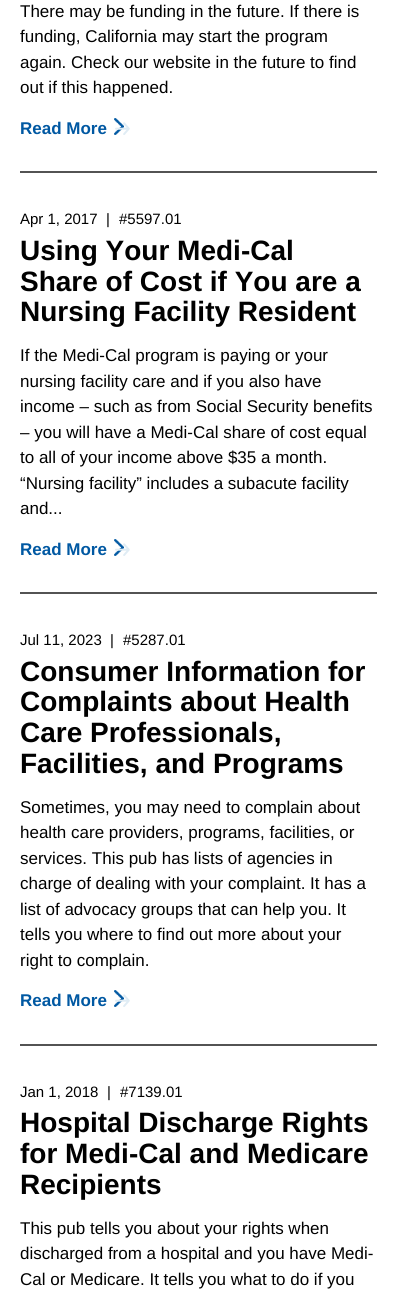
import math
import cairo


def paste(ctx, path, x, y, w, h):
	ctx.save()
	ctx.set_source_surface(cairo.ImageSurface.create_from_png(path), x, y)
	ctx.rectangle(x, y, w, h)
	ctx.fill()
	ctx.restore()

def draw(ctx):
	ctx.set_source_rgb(1, 1, 1)
	ctx.paint()
	ctx.set_source_rgb(0.325, 0.325, 0.325)
	ctx.rectangle(20, 171, 357, 2)
	ctx.fill()
	ctx.select_font_face('Liberation Sans')
	ctx.set_font_size(17)
	ctx.set_source_rgb(0, 0, 0)
	for x, y, s in [
		(20, 17, 'There may be funding in the future. If there is'),
		(20, 42, 'funding, California may start the program'),
		(20, 68, 'again. Check our website in the future to find'),
		(20, 93, 'out if this happened.'),
	]:
		ctx.move_to(x, y)
		ctx.show_text(s)
	ctx.select_font_face('Liberation Sans', cairo.FONT_SLANT_NORMAL, cairo.FONT_WEIGHT_BOLD)
	ctx.set_source_rgb(0, 0.345, 0.635)
	ctx.move_to(20, 134)
	ctx.show_text('Read More')
	paste(ctx, 'media/1.png', 114, 118, 10, 17)
	ctx.select_font_face('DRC')
	ctx.set_source_rgb(0.878, 0.922, 0.957)
	ctx.move_to(115, 134)
	ctx.show_text('→')
	ctx.set_source_rgb(0.325, 0.325, 0.325)
	ctx.rectangle(20, 592, 357, 2)
	ctx.fill()
	ctx.select_font_face('Liberation Sans')
	ctx.set_font_size(15)
	ctx.set_source_rgb(0, 0, 0)
	for x, y, s in [
		(20, 224, 'Apr 1, 2017'),
		(106, 224, '|'),
		(119, 224, '#5597.01'),
	]:
		ctx.move_to(x, y)
		ctx.show_text(s)
	ctx.select_font_face('Liberation Sans', cairo.FONT_SLANT_NORMAL, cairo.FONT_WEIGHT_BOLD)
	ctx.set_font_size(28)
	for x, y, s in [
		(20, 260, 'Using Your Medi-Cal'),
		(20, 291, 'Share of Cost if You are a'),
		(20, 321, 'Nursing Facility Resident'),
	]:
		ctx.move_to(x, y)
		ctx.show_text(s)
	ctx.select_font_face('Liberation Sans')
	ctx.set_font_size(17)
	for x, y, s in [
		(20, 361, 'If the Medi-Cal program is paying or your'),
		(20, 387, 'nursing facility care and if you also have'),
		(20, 412, 'income – such as from Social Security benefits'),
		(20, 438, '– you will have a Medi-Cal share of cost equal'),
		(20, 463, 'to all of your income above $35 a month.'),
		(20, 489, '“Nursing facility” includes a subacute facility'),
		(20, 514, 'and...'),
	]:
		ctx.move_to(x, y)
		ctx.show_text(s)
	ctx.select_font_face('Liberation Sans', cairo.FONT_SLANT_NORMAL, cairo.FONT_WEIGHT_BOLD)
	ctx.set_source_rgb(0, 0.345, 0.635)
	ctx.move_to(20, 555)
	ctx.show_text('Read More')
	paste(ctx, 'media/1.png', 114, 539, 10, 17)
	ctx.select_font_face('DRC')
	ctx.set_source_rgb(0.878, 0.922, 0.957)
	ctx.move_to(115, 555)
	ctx.show_text('→')
	ctx.set_source_rgb(0.325, 0.325, 0.325)
	ctx.rectangle(20, 1044, 357, 2)
	ctx.fill()
	ctx.select_font_face('Liberation Sans')
	ctx.set_font_size(15)
	ctx.set_source_rgb(0, 0, 0)
	for x, y, s in [
		(20, 645, 'Jul 11, 2023'),
		(110, 645, '|'),
		(123, 645, '#5287.01'),
	]:
		ctx.move_to(x, y)
		ctx.show_text(s)
	ctx.select_font_face('Liberation Sans', cairo.FONT_SLANT_NORMAL, cairo.FONT_WEIGHT_BOLD)
	ctx.set_font_size(28)
	for x, y, s in [
		(20, 681, 'Consumer Information for'),
		(20, 711, 'Complaints about Health'),
		(20, 742, 'Care Professionals,'),
		(20, 773, 'Facilities, and Programs'),
	]:
		ctx.move_to(x, y)
		ctx.show_text(s)
	ctx.select_font_face('Liberation Sans')
	ctx.set_font_size(17)
	for x, y, s in [
		(20, 813, 'Sometimes, you may need to complain about'),
		(20, 838, 'health care providers, programs, facilities, or'),
		(20, 864, 'services. This pub has lists of agencies in'),
		(20, 889, 'charge of dealing with your complaint. It has a'),
		(20, 915, 'list of advocacy groups that can help you. It'),
		(20, 940, 'tells you where to find out more about your'),
		(20, 966, 'right to complain.'),
	]:
		ctx.move_to(x, y)
		ctx.show_text(s)
	ctx.select_font_face('Liberation Sans', cairo.FONT_SLANT_NORMAL, cairo.FONT_WEIGHT_BOLD)
	ctx.set_source_rgb(0, 0.345, 0.635)
	ctx.move_to(20, 1006)
	ctx.show_text('Read More')
	paste(ctx, 'media/1.png', 114, 990, 10, 17)
	ctx.select_font_face('DRC')
	ctx.set_source_rgb(0.878, 0.922, 0.957)
	ctx.move_to(115, 1006)
	ctx.show_text('→')
	ctx.select_font_face('Liberation Sans')
	ctx.set_font_size(15)
	ctx.set_source_rgb(0, 0, 0)
	for x, y, s in [
		(20, 1097, 'Jan 1, 2018'),
		(107, 1097, '|'),
		(120, 1097, '#7139.01'),
	]:
		ctx.move_to(x, y)
		ctx.show_text(s)
	ctx.select_font_face('Liberation Sans', cairo.FONT_SLANT_NORMAL, cairo.FONT_WEIGHT_BOLD)
	ctx.set_font_size(28)
	for x, y, s in [
		(20, 1132, 'Hospital Discharge Rights'),
		(20, 1163, 'for Medi-Cal and Medicare'),
		(20, 1194, 'Recipients'),
	]:
		ctx.move_to(x, y)
		ctx.show_text(s)
	ctx.select_font_face('Liberation Sans')
	ctx.set_font_size(17)
	for x, y, s in [
		(20, 1234, 'This pub tells you about your rights when'),
		(20, 1259, 'discharged from a hospital and you have Medi-'),
		(20, 1285, 'Cal or Medicare. It tells you what to do if you'),
	]:
		ctx.move_to(x, y)
		ctx.show_text(s)


surface = cairo.ImageSurface(cairo.FORMAT_RGB24, 397, 1298)
ctx = cairo.Context(surface)
options = cairo.FontOptions()
options.set_hint_metrics(cairo.HINT_METRICS_OFF)
options.set_hint_style(cairo.HINT_STYLE_NONE)
ctx.set_font_options(options)
ctx.set_miter_limit(4)
draw(ctx)
surface.write_to_png('image.png')
